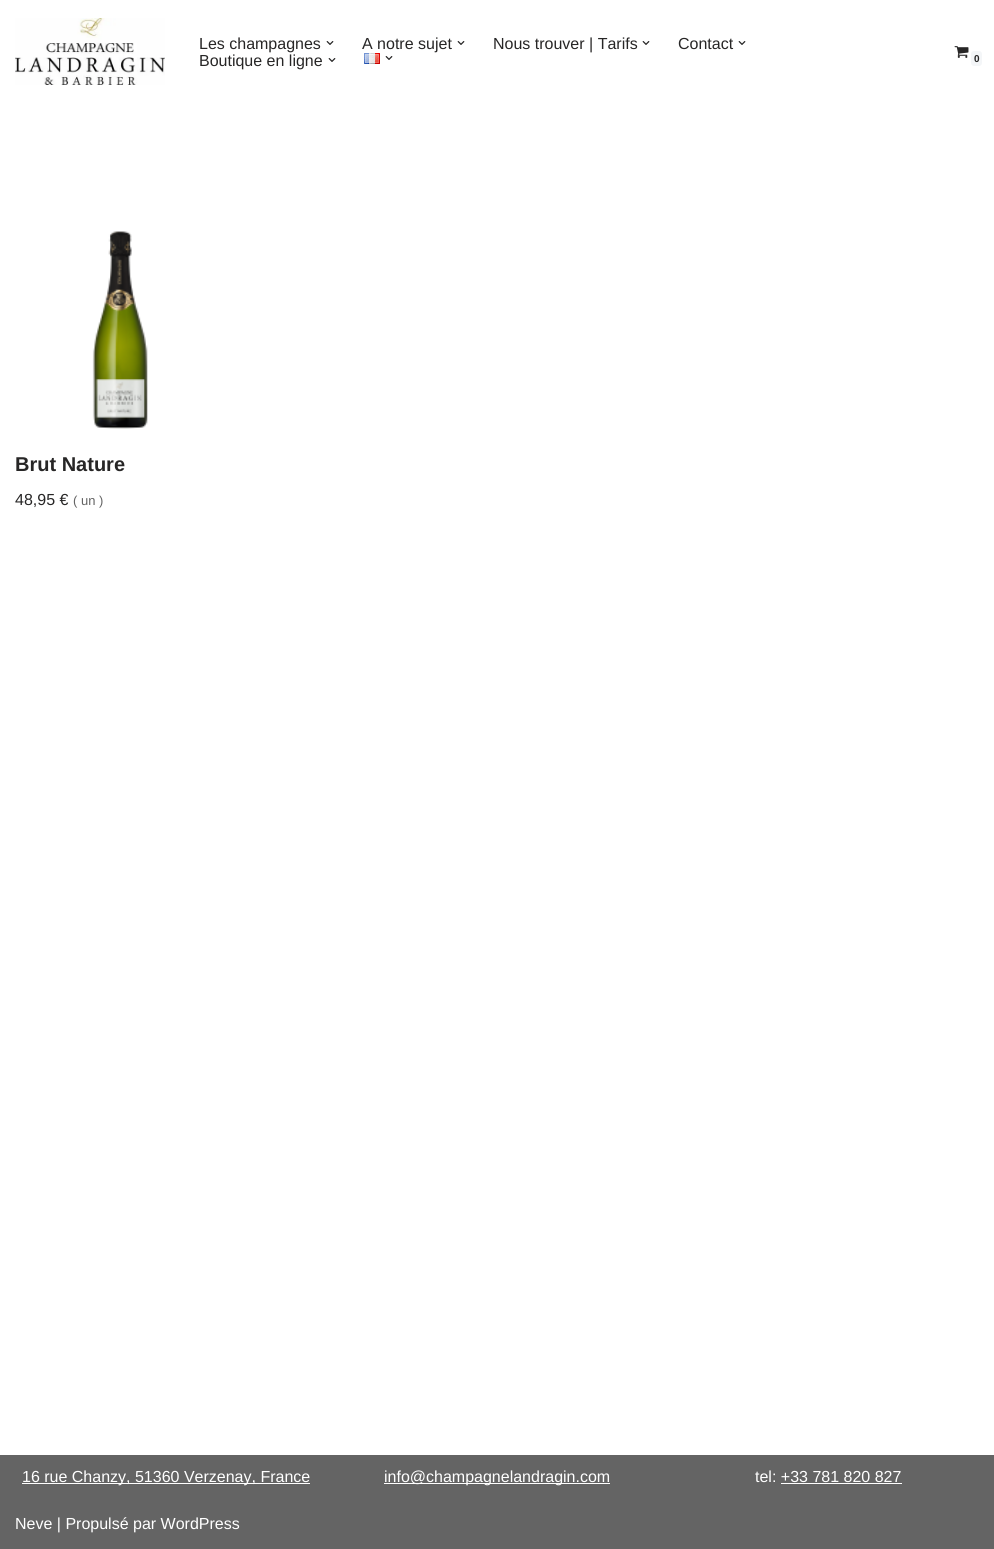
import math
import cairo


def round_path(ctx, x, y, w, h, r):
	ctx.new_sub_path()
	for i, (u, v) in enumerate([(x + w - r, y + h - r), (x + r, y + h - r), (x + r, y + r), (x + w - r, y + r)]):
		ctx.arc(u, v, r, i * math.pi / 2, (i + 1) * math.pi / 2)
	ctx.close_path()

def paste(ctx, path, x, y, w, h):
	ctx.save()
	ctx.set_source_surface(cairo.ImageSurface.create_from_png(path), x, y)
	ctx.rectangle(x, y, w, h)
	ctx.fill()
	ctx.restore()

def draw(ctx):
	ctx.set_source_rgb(1, 1, 1)
	ctx.paint()
	paste(ctx, 'media/1.png', 15, 18, 150, 67)
	ctx.select_font_face('Liberation Sans')
	ctx.set_font_size(16)
	ctx.set_source_rgb(0.153, 0.149, 0.149)
	ctx.move_to(199, 49)
	ctx.show_text('Les champagnes')
	paste(ctx, 'media/2.png', 326, 41, 8, 4)
	ctx.move_to(362, 49)
	ctx.show_text('A notre sujet')
	paste(ctx, 'media/2.png', 457, 41, 8, 4)
	ctx.move_to(493, 49)
	ctx.show_text('Nous trouver | Tarifs')
	paste(ctx, 'media/2.png', 642, 41, 8, 4)
	ctx.move_to(678, 49)
	ctx.show_text('Contact')
	paste(ctx, 'media/2.png', 738, 41, 8, 4)
	ctx.move_to(199, 66)
	ctx.show_text('Boutique en ligne')
	paste(ctx, 'media/2.png', 328, 58, 8, 4)
	paste(ctx, 'media/3.png', 364, 53, 16, 11)
	paste(ctx, 'media/2.png', 385, 56, 8, 4)
	paste(ctx, 'media/4.png', 954, 46, 15, 12)
	ctx.set_source_rgb(0.957, 0.961, 0.969)
	round_path(ctx, 971, 51, 11, 15, 3)
	ctx.fill()
	ctx.select_font_face('Liberation Sans', cairo.FONT_SLANT_NORMAL, cairo.FONT_WEIGHT_BOLD)
	ctx.set_font_size(10)
	ctx.set_source_rgb(0.153, 0.149, 0.149)
	ctx.move_to(974, 62)
	ctx.show_text('0')
	paste(ctx, 'media/5.png', 92, 231, 56, 198)
	ctx.set_font_size(20)
	ctx.move_to(15, 471)
	ctx.show_text('Brut Nature')
	ctx.select_font_face('Liberation Sans')
	ctx.set_font_size(16)
	ctx.move_to(15, 505)
	ctx.show_text('48,95 €')
	ctx.set_font_size(13)
	ctx.set_source_rgb(0.388, 0.388, 0.388)
	ctx.move_to(73, 505)
	ctx.show_text('( un )')
	ctx.set_source_rgb(0.392, 0.392, 0.392)
	ctx.rectangle(0, 1455, 994, 94)
	ctx.fill()
	ctx.set_source_rgb(1, 1, 1)
	ctx.rectangle(22, 1483, 288, 1)
	ctx.fill()
	ctx.set_font_size(16)
	ctx.move_to(22, 1482)
	ctx.show_text('16 rue Chanzy, 51360 Verzenay, France')
	ctx.rectangle(384, 1483, 226, 1)
	ctx.fill()
	ctx.move_to(384, 1482)
	ctx.show_text('info@champagnelandragin.com')
	ctx.move_to(755, 1482)
	ctx.show_text('tel: +33 781 820 827')
	ctx.rectangle(781, 1483, 121, 1)
	ctx.fill()
	ctx.move_to(15, 1529)
	ctx.show_text('Neve | Propulsé par WordPress')


surface = cairo.ImageSurface(cairo.FORMAT_RGB24, 994, 1549)
ctx = cairo.Context(surface)
options = cairo.FontOptions()
options.set_hint_metrics(cairo.HINT_METRICS_OFF)
options.set_hint_style(cairo.HINT_STYLE_NONE)
ctx.set_font_options(options)
ctx.set_miter_limit(4)
draw(ctx)
surface.write_to_png('image.png')
